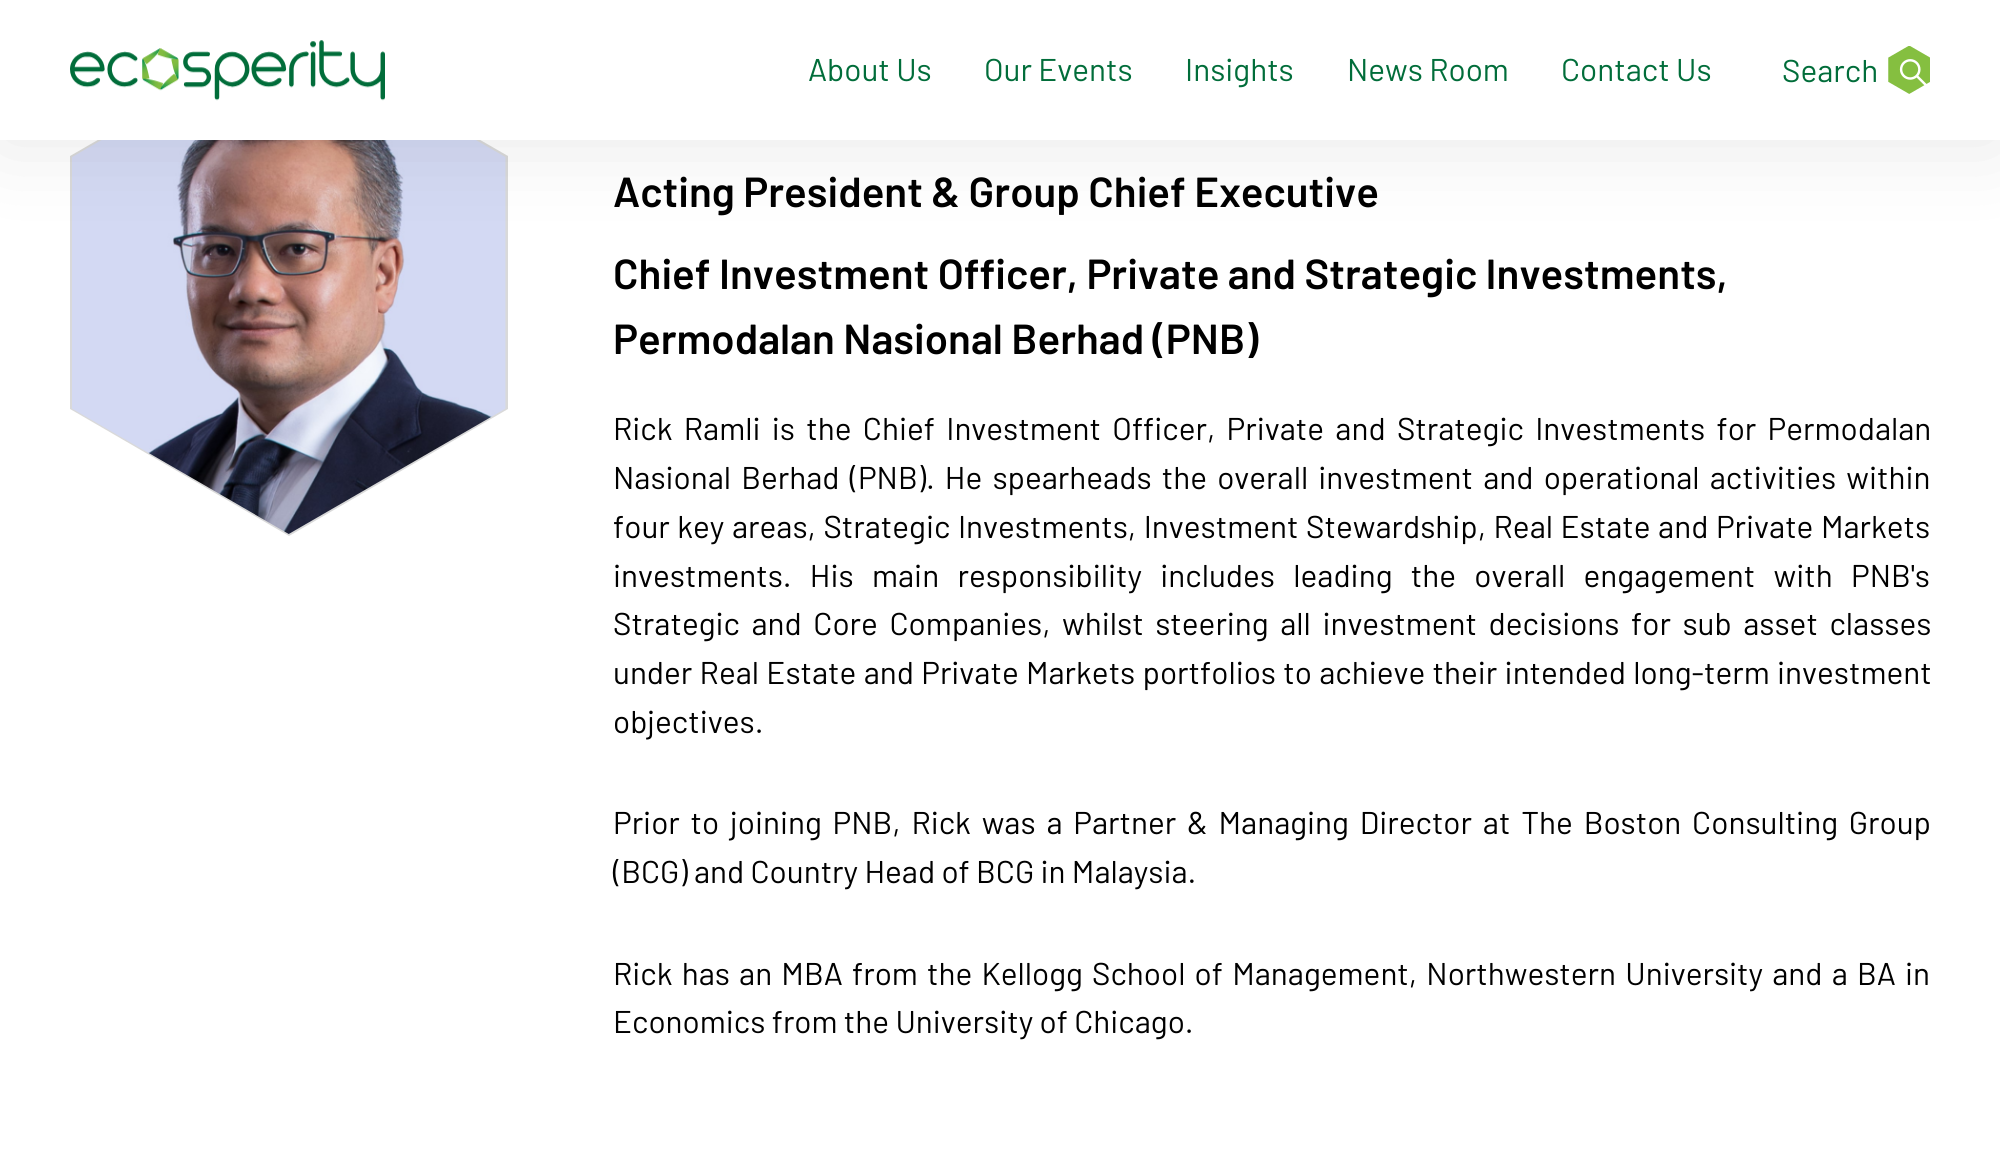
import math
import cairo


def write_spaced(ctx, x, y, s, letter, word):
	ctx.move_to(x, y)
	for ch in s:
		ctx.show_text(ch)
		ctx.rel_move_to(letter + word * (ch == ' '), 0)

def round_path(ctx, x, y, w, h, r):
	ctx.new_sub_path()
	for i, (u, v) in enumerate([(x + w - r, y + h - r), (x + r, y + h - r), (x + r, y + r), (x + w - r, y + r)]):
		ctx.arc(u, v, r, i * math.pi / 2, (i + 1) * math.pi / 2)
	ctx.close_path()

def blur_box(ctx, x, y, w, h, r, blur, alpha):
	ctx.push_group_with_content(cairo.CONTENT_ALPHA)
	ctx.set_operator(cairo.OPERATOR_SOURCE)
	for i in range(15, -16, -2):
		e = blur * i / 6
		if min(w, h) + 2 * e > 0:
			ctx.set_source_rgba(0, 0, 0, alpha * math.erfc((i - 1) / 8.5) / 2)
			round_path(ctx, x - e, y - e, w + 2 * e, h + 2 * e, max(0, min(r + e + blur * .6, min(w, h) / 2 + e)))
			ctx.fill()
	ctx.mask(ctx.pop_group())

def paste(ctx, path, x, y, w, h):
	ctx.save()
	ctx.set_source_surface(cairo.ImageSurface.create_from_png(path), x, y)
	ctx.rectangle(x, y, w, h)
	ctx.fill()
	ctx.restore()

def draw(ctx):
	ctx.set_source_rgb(1, 1, 1)
	ctx.paint()
	ctx.set_source_rgb(0.851, 0.851, 0.851)
	ctx.new_path()
	ctx.move_to(70, 156)
	ctx.line_to(70, 409)
	ctx.line_to(289, 536)
	ctx.line_to(508, 409)
	ctx.line_to(508, 156)
	ctx.line_to(289, 30)
	ctx.line_to(288, 30)
	ctx.close_path()
	ctx.fill()
	paste(ctx, 'media/3.png', 72, 140, 434, 394)
	ctx.set_source_rgb(0, 0, 0)
	blur_box(ctx, 0, 0, 2000, 140, 0, 44, 0.1)
	ctx.set_source_rgb(1, 1, 1)
	ctx.rectangle(0, 0, 2000, 140)
	ctx.fill()
	paste(ctx, 'media/1.png', 70, 40, 315, 61)
	ctx.select_font_face('Barlow')
	ctx.set_font_size(31.5)
	ctx.set_source_rgb(0.004, 0.427, 0.227)
	for x, y, s in [
		(808, 81, 'About Us'),
		(984, 81, 'Our Events'),
		(1185, 81, 'Insights'),
		(1347, 81, 'News Room'),
		(1561, 81, 'Contact Us'),
	]:
		ctx.move_to(x, y)
		ctx.show_text(s)
	paste(ctx, 'media/2.png', 1888, 46, 42, 48)
	ctx.move_to(1782, 82)
	ctx.show_text('Search')
	ctx.select_font_face('Barlow SemiBold')
	ctx.set_font_size(42)
	ctx.set_source_rgb(0, 0, 0)
	for x, y, s in [
		(613, 207, 'Acting President & Group Chief Executive'),
		(613, 289, 'Chief Investment Officer, Private and Strategic Investments,'),
		(613, 354, 'Permodalan Nasional Berhad (PNB)'),
	]:
		ctx.move_to(x, y)
		ctx.show_text(s)
	ctx.select_font_face('Barlow')
	ctx.set_font_size(31.5)
	write_spaced(ctx, 613, 440, 'Rick Ramli is the Chief Investment Officer, Private and Strategic Investments for Permodalan', 0, 5)
	write_spaced(ctx, 613, 489, 'Nasional Berhad (PNB). He spearheads the overall investment and operational activities within', 0, 3.9)
	write_spaced(ctx, 613, 538, 'four key areas, Strategic Investments, Investment Stewardship, Real Estate and Private Markets', 0, 1.25)
	write_spaced(ctx, 613, 587, 'investments. His main responsibility includes leading the overall engagement with PNB\'s', 0, 12)
	write_spaced(ctx, 613, 635, 'Strategic and Core Companies, whilst steering all investment decisions for sub asset classes', 0, 5.25)
	write_spaced(ctx, 613, 684, 'under Real Estate and Private Markets portfolios to achieve their intended long-term investment', 0, 1)
	ctx.move_to(613, 733)
	ctx.show_text('objectives.')
	write_spaced(ctx, 613, 834, 'Prior to joining PNB, Rick was a Partner & Managing Director at The Boston Consulting Group', 0, 4.5)
	ctx.move_to(613, 883)
	ctx.show_text('(BCG) and Country Head of BCG in Malaysia.')
	write_spaced(ctx, 613, 985, 'Rick has an MBA from the Kellogg School of Management, Northwestern University and a BA in', 0, 2.9)
	ctx.move_to(613, 1033)
	ctx.show_text('Economics from the University of Chicago.')


surface = cairo.ImageSurface(cairo.FORMAT_RGB24, 2000, 1176)
ctx = cairo.Context(surface)
options = cairo.FontOptions()
options.set_hint_metrics(cairo.HINT_METRICS_OFF)
options.set_hint_style(cairo.HINT_STYLE_NONE)
ctx.set_font_options(options)
ctx.set_miter_limit(4)
draw(ctx)
surface.write_to_png('image.png')
